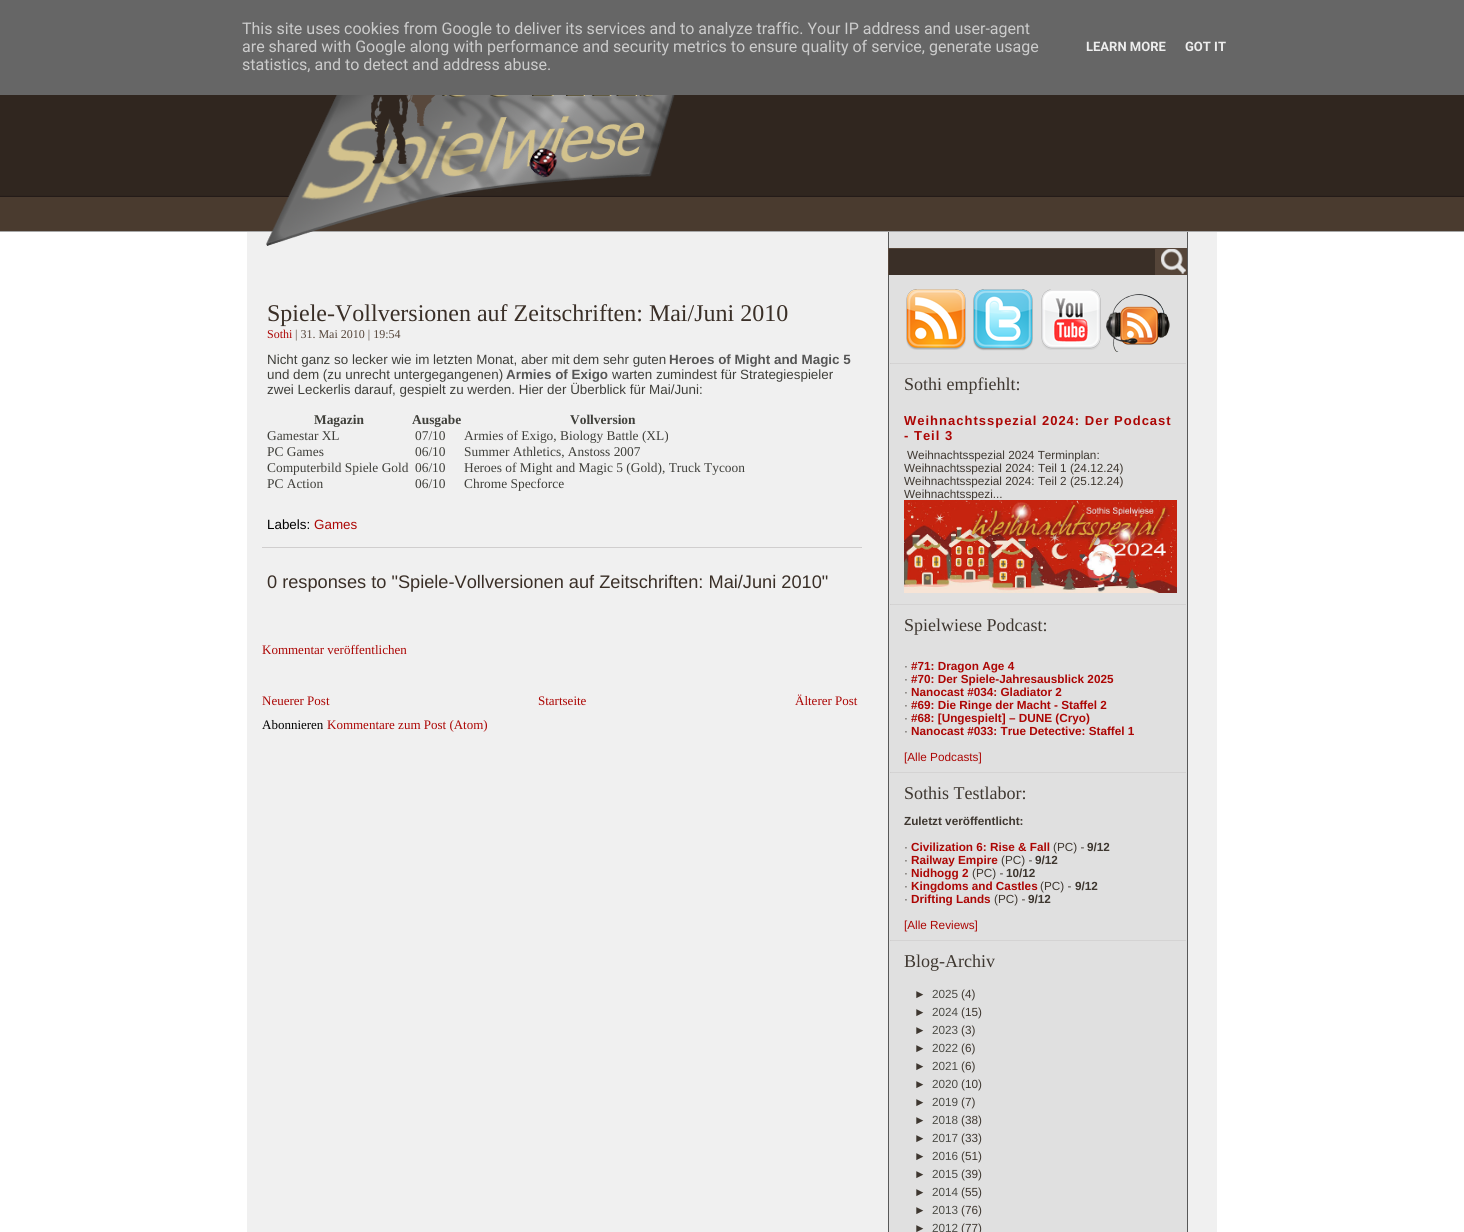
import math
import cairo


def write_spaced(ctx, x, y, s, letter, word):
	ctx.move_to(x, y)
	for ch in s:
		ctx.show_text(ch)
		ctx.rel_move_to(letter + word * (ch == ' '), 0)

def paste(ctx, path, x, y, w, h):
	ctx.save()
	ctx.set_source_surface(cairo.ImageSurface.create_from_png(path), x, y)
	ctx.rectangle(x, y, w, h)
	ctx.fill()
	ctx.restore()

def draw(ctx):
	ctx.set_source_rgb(1, 1, 1)
	ctx.paint()
	paste(ctx, 'media/1.png', 0, 95, 1464, 137)
	ctx.set_source_rgb(0.4, 0.4, 0.4)
	ctx.rectangle(0, 0, 1464, 95)
	ctx.fill()
	ctx.select_font_face('Roboto')
	ctx.set_font_size(16)
	ctx.set_source_rgb(0.8, 0.8, 0.8)
	for x, y, s in [
		(242, 34, 'This site uses cookies from Google to deliver its services and to analyze traffic. Your IP address and user-agent'),
		(242, 52, 'are shared with Google along with performance and security metrics to ensure quality of service, generate usage'),
		(242, 70, 'statistics, and to detect and address abuse.'),
	]:
		ctx.move_to(x, y)
		ctx.show_text(s)
	ctx.select_font_face('Roboto', cairo.FONT_SLANT_NORMAL, cairo.FONT_WEIGHT_BOLD)
	ctx.set_font_size(13)
	ctx.set_source_rgb(0.933, 0.933, 0.933)
	ctx.move_to(1086, 51)
	ctx.show_text('LEARN MORE')
	ctx.move_to(1185, 51)
	ctx.show_text('GOT IT')
	paste(ctx, 'media/4.png', 247, 232, 970, 1000)
	paste(ctx, 'media/2.png', 266, 95, 409, 151)
	paste(ctx, 'media/3.png', 888, 248, 299, 27)
	ctx.set_source_rgb(0.816, 0.808, 0.808)
	ctx.rectangle(262, 547, 600, 1)
	ctx.fill()
	ctx.select_font_face('Liberation Serif')
	ctx.set_font_size(24)
	ctx.set_source_rgb(0.227, 0.184, 0.153)
	ctx.move_to(267, 321)
	ctx.show_text('Spiele-Vollversionen auf Zeitschriften: Mai/Juni 2010')
	ctx.set_font_size(12)
	ctx.set_source_rgb(0.675, 0.024, 0.016)
	ctx.move_to(267, 338)
	ctx.show_text('Sothi')
	ctx.set_source_rgb(0.333, 0.271, 0.224)
	ctx.move_to(295, 338)
	ctx.show_text('| 31. Mai 2010 | 19:54')
	ctx.select_font_face('Liberation Sans')
	ctx.set_font_size(13.4)
	ctx.set_source_rgb(0.247, 0.247, 0.227)
	ctx.move_to(267, 364)
	ctx.show_text('Nicht ganz so lecker wie im letzten Monat, aber mit dem sehr guten')
	ctx.select_font_face('Liberation Sans', cairo.FONT_SLANT_NORMAL, cairo.FONT_WEIGHT_BOLD)
	ctx.set_source_rgb(0.333, 0.333, 0.333)
	ctx.move_to(669, 364)
	ctx.show_text('Heroes of Might and Magic 5')
	ctx.select_font_face('Liberation Sans')
	ctx.set_source_rgb(0.247, 0.247, 0.227)
	ctx.move_to(267, 379)
	ctx.show_text('und dem (zu unrecht untergegangenen)')
	ctx.select_font_face('Liberation Sans', cairo.FONT_SLANT_NORMAL, cairo.FONT_WEIGHT_BOLD)
	ctx.set_source_rgb(0.333, 0.333, 0.333)
	ctx.move_to(506, 379)
	ctx.show_text('Armies of Exigo')
	ctx.select_font_face('Liberation Sans')
	ctx.set_source_rgb(0.247, 0.247, 0.227)
	ctx.move_to(612, 379)
	ctx.show_text('warten zumindest für Strategiespieler')
	ctx.move_to(267, 394)
	ctx.show_text('zwei Leckerlis darauf, gespielt zu werden. Hier der Überblick für Mai/Juni:')
	ctx.select_font_face('Liberation Serif', cairo.FONT_SLANT_NORMAL, cairo.FONT_WEIGHT_BOLD)
	for x, y, s in [
		(314, 424, 'Magazin'),
		(412, 424, 'Ausgabe'),
		(570, 424, 'Vollversion'),
	]:
		ctx.move_to(x, y)
		ctx.show_text(s)
	ctx.select_font_face('Liberation Serif')
	for x, y, s in [
		(267, 440, 'Gamestar XL'),
		(415, 440, '07/10'),
		(464, 440, 'Armies of Exigo, Biology Battle (XL)'),
		(267, 456, 'PC Games'),
		(415, 456, '06/10'),
		(464, 456, 'Summer Athletics, Anstoss 2007'),
		(267, 472, 'Computerbild Spiele Gold'),
		(415, 472, '06/10'),
		(464, 472, 'Heroes of Might and Magic 5 (Gold), Truck Tycoon'),
		(267, 488, 'PC Action'),
		(415, 488, '06/10'),
		(464, 488, 'Chrome Specforce'),
	]:
		ctx.move_to(x, y)
		ctx.show_text(s)
	ctx.select_font_face('Liberation Sans')
	ctx.set_source_rgb(0, 0, 0)
	ctx.move_to(267, 529)
	ctx.show_text('Labels:')
	ctx.set_source_rgb(0.675, 0.024, 0.016)
	ctx.move_to(314, 529)
	ctx.show_text('Games')
	ctx.set_font_size(18.2)
	ctx.set_source_rgb(0.227, 0.184, 0.153)
	ctx.move_to(267, 588)
	ctx.show_text('0 responses to "Spiele-Vollversionen auf Zeitschriften: Mai/Juni 2010"')
	ctx.select_font_face('Liberation Serif')
	ctx.set_font_size(13)
	ctx.set_source_rgb(0.675, 0.024, 0.016)
	for x, y, s in [
		(262, 654, 'Kommentar veröffentlichen'),
		(262, 705, 'Neuerer Post'),
		(538, 705, 'Startseite'),
		(795, 705, 'Älterer Post'),
	]:
		ctx.move_to(x, y)
		ctx.show_text(s)
	ctx.set_source_rgb(0, 0, 0)
	ctx.move_to(262, 729)
	ctx.show_text('Abonnieren')
	ctx.set_source_rgb(0.675, 0.024, 0.016)
	ctx.move_to(327, 729)
	ctx.show_text('Kommentare zum Post (Atom)')
	paste(ctx, 'media/5.png', 890, 363, 296, 1)
	paste(ctx, 'media/6.png', 906, 289, 60, 61)
	paste(ctx, 'media/7.png', 973, 289, 60, 62)
	paste(ctx, 'media/8.png', 1041, 289, 60, 61)
	paste(ctx, 'media/9.png', 1106, 294, 64, 58)
	paste(ctx, 'media/5.png', 890, 604, 296, 1)
	ctx.set_font_size(18)
	ctx.set_source_rgb(0.243, 0.216, 0.188)
	ctx.move_to(904, 390)
	ctx.show_text('Sothi empfiehlt:')
	ctx.select_font_face('Liberation Sans', cairo.FONT_SLANT_NORMAL, cairo.FONT_WEIGHT_BOLD)
	ctx.set_font_size(13)
	ctx.set_source_rgb(0.675, 0.024, 0.016)
	write_spaced(ctx, 904, 425, 'Weihnachtsspezial 2024: Der Podcast', 1, 0)
	write_spaced(ctx, 904, 440, '- Teil 3', 1, 0)
	ctx.select_font_face('Liberation Sans')
	ctx.set_font_size(11.75)
	ctx.set_source_rgb(0.243, 0.216, 0.188)
	for x, y, s in [
		(907, 459, 'Weihnachtsspezial 2024 Terminplan:'),
		(904, 472, 'Weihnachtsspezial 2024: Teil 1 (24.12.24)'),
		(904, 485, 'Weihnachtsspezial 2024: Teil 2 (25.12.24)'),
		(904, 498, 'Weihnachtsspezi...'),
	]:
		ctx.move_to(x, y)
		ctx.show_text(s)
	paste(ctx, 'media/10.png', 904, 500, 273, 93)
	paste(ctx, 'media/5.png', 890, 772, 296, 1)
	ctx.select_font_face('Liberation Serif')
	ctx.set_font_size(18)
	ctx.move_to(904, 631)
	ctx.show_text('Spielwiese Podcast:')
	ctx.select_font_face('Liberation Sans')
	ctx.set_font_size(11.75)
	ctx.move_to(904, 670)
	ctx.show_text('·')
	ctx.select_font_face('Liberation Sans', cairo.FONT_SLANT_NORMAL, cairo.FONT_WEIGHT_BOLD)
	ctx.set_source_rgb(0.675, 0.024, 0.016)
	ctx.move_to(911, 670)
	ctx.show_text('#71: Dragon Age 4')
	ctx.select_font_face('Liberation Sans')
	ctx.set_source_rgb(0.243, 0.216, 0.188)
	ctx.move_to(904, 683)
	ctx.show_text('·')
	ctx.select_font_face('Liberation Sans', cairo.FONT_SLANT_NORMAL, cairo.FONT_WEIGHT_BOLD)
	ctx.set_source_rgb(0.675, 0.024, 0.016)
	ctx.move_to(911, 683)
	ctx.show_text('#70: Der Spiele-Jahresausblick 2025')
	ctx.select_font_face('Liberation Sans')
	ctx.set_source_rgb(0.243, 0.216, 0.188)
	ctx.move_to(904, 696)
	ctx.show_text('·')
	ctx.select_font_face('Liberation Sans', cairo.FONT_SLANT_NORMAL, cairo.FONT_WEIGHT_BOLD)
	ctx.set_source_rgb(0.675, 0.024, 0.016)
	ctx.move_to(911, 696)
	ctx.show_text('Nanocast #034: Gladiator 2')
	ctx.select_font_face('Liberation Sans')
	ctx.set_source_rgb(0.243, 0.216, 0.188)
	ctx.move_to(904, 709)
	ctx.show_text('·')
	ctx.select_font_face('Liberation Sans', cairo.FONT_SLANT_NORMAL, cairo.FONT_WEIGHT_BOLD)
	ctx.set_source_rgb(0.675, 0.024, 0.016)
	ctx.move_to(911, 709)
	ctx.show_text('#69: Die Ringe der Macht - Staffel 2')
	ctx.select_font_face('Liberation Sans')
	ctx.set_source_rgb(0.243, 0.216, 0.188)
	ctx.move_to(904, 722)
	ctx.show_text('·')
	ctx.select_font_face('Liberation Sans', cairo.FONT_SLANT_NORMAL, cairo.FONT_WEIGHT_BOLD)
	ctx.set_source_rgb(0.675, 0.024, 0.016)
	ctx.move_to(911, 722)
	ctx.show_text('#68: [Ungespielt] – DUNE (Cryo)')
	ctx.select_font_face('Liberation Sans')
	ctx.set_source_rgb(0.243, 0.216, 0.188)
	ctx.move_to(904, 735)
	ctx.show_text('·')
	ctx.select_font_face('Liberation Sans', cairo.FONT_SLANT_NORMAL, cairo.FONT_WEIGHT_BOLD)
	ctx.set_source_rgb(0.675, 0.024, 0.016)
	ctx.move_to(911, 735)
	ctx.show_text('Nanocast #033: True Detective: Staffel 1')
	ctx.select_font_face('Liberation Sans')
	ctx.move_to(904, 761)
	ctx.show_text('[Alle Podcasts]')
	paste(ctx, 'media/5.png', 890, 940, 296, 1)
	ctx.select_font_face('Liberation Serif')
	ctx.set_font_size(18)
	ctx.set_source_rgb(0.243, 0.216, 0.188)
	ctx.move_to(904, 799)
	ctx.show_text('Sothis Testlabor:')
	ctx.select_font_face('Liberation Sans', cairo.FONT_SLANT_NORMAL, cairo.FONT_WEIGHT_BOLD)
	ctx.set_font_size(11.75)
	ctx.move_to(904, 825)
	ctx.show_text('Zuletzt veröffentlicht:')
	ctx.select_font_face('Liberation Sans')
	ctx.move_to(904, 851)
	ctx.show_text('·')
	ctx.select_font_face('Liberation Sans', cairo.FONT_SLANT_NORMAL, cairo.FONT_WEIGHT_BOLD)
	ctx.set_source_rgb(0.675, 0.024, 0.016)
	ctx.move_to(911, 851)
	ctx.show_text('Civilization 6: Rise & Fall')
	ctx.select_font_face('Liberation Sans')
	ctx.set_source_rgb(0.243, 0.216, 0.188)
	ctx.move_to(1053, 851)
	ctx.show_text('(PC) -')
	ctx.select_font_face('Liberation Sans', cairo.FONT_SLANT_NORMAL, cairo.FONT_WEIGHT_BOLD)
	ctx.move_to(1087, 851)
	ctx.show_text('9/12')
	ctx.select_font_face('Liberation Sans')
	ctx.move_to(904, 864)
	ctx.show_text('·')
	ctx.select_font_face('Liberation Sans', cairo.FONT_SLANT_NORMAL, cairo.FONT_WEIGHT_BOLD)
	ctx.set_source_rgb(0.675, 0.024, 0.016)
	ctx.move_to(911, 864)
	ctx.show_text('Railway Empire')
	ctx.select_font_face('Liberation Sans')
	ctx.set_source_rgb(0.243, 0.216, 0.188)
	ctx.move_to(1001, 864)
	ctx.show_text('(PC) -')
	ctx.select_font_face('Liberation Sans', cairo.FONT_SLANT_NORMAL, cairo.FONT_WEIGHT_BOLD)
	ctx.move_to(1035, 864)
	ctx.show_text('9/12')
	ctx.select_font_face('Liberation Sans')
	ctx.move_to(904, 877)
	ctx.show_text('·')
	ctx.select_font_face('Liberation Sans', cairo.FONT_SLANT_NORMAL, cairo.FONT_WEIGHT_BOLD)
	ctx.set_source_rgb(0.675, 0.024, 0.016)
	ctx.move_to(911, 877)
	ctx.show_text('Nidhogg 2')
	ctx.select_font_face('Liberation Sans')
	ctx.set_source_rgb(0.243, 0.216, 0.188)
	ctx.move_to(972, 877)
	ctx.show_text('(PC) -')
	ctx.select_font_face('Liberation Sans', cairo.FONT_SLANT_NORMAL, cairo.FONT_WEIGHT_BOLD)
	ctx.move_to(1006, 877)
	ctx.show_text('10/12')
	ctx.select_font_face('Liberation Sans')
	ctx.move_to(904, 890)
	ctx.show_text('·')
	ctx.select_font_face('Liberation Sans', cairo.FONT_SLANT_NORMAL, cairo.FONT_WEIGHT_BOLD)
	ctx.set_source_rgb(0.675, 0.024, 0.016)
	ctx.move_to(911, 890)
	ctx.show_text('Kingdoms and Castles')
	ctx.select_font_face('Liberation Sans')
	ctx.set_source_rgb(0.243, 0.216, 0.188)
	ctx.move_to(1040, 890)
	ctx.show_text('(PC) -')
	ctx.select_font_face('Liberation Sans', cairo.FONT_SLANT_NORMAL, cairo.FONT_WEIGHT_BOLD)
	ctx.move_to(1075, 890)
	ctx.show_text('9/12')
	ctx.select_font_face('Liberation Sans')
	ctx.move_to(904, 903)
	ctx.show_text('·')
	ctx.select_font_face('Liberation Sans', cairo.FONT_SLANT_NORMAL, cairo.FONT_WEIGHT_BOLD)
	ctx.set_source_rgb(0.675, 0.024, 0.016)
	ctx.move_to(911, 903)
	ctx.show_text('Drifting Lands')
	ctx.select_font_face('Liberation Sans')
	ctx.set_source_rgb(0.243, 0.216, 0.188)
	ctx.move_to(994, 903)
	ctx.show_text('(PC) -')
	ctx.select_font_face('Liberation Sans', cairo.FONT_SLANT_NORMAL, cairo.FONT_WEIGHT_BOLD)
	ctx.move_to(1028, 903)
	ctx.show_text('9/12')
	ctx.select_font_face('Liberation Sans')
	ctx.set_source_rgb(0.675, 0.024, 0.016)
	ctx.move_to(904, 929)
	ctx.show_text('[Alle Reviews]')
	ctx.select_font_face('Liberation Serif')
	ctx.set_font_size(18)
	ctx.set_source_rgb(0.243, 0.216, 0.188)
	ctx.move_to(904, 967)
	ctx.show_text('Blog-Archiv')
	ctx.select_font_face('Liberation Sans')
	ctx.set_font_size(11.75)
	ctx.move_to(914, 998)
	ctx.show_text('►')
	ctx.set_source_rgb(0.298, 0.298, 0.275)
	ctx.move_to(932, 998)
	ctx.show_text('2025')
	ctx.set_source_rgb(0.243, 0.216, 0.188)
	ctx.move_to(961, 998)
	ctx.show_text('(4)')
	ctx.move_to(914, 1016)
	ctx.show_text('►')
	ctx.set_source_rgb(0.298, 0.298, 0.275)
	ctx.move_to(932, 1016)
	ctx.show_text('2024')
	ctx.set_source_rgb(0.243, 0.216, 0.188)
	ctx.move_to(961, 1016)
	ctx.show_text('(15)')
	ctx.move_to(914, 1034)
	ctx.show_text('►')
	ctx.set_source_rgb(0.298, 0.298, 0.275)
	ctx.move_to(932, 1034)
	ctx.show_text('2023')
	ctx.set_source_rgb(0.243, 0.216, 0.188)
	ctx.move_to(961, 1034)
	ctx.show_text('(3)')
	ctx.move_to(914, 1052)
	ctx.show_text('►')
	ctx.set_source_rgb(0.298, 0.298, 0.275)
	ctx.move_to(932, 1052)
	ctx.show_text('2022')
	ctx.set_source_rgb(0.243, 0.216, 0.188)
	ctx.move_to(961, 1052)
	ctx.show_text('(6)')
	ctx.move_to(914, 1070)
	ctx.show_text('►')
	ctx.set_source_rgb(0.298, 0.298, 0.275)
	ctx.move_to(932, 1070)
	ctx.show_text('2021')
	ctx.set_source_rgb(0.243, 0.216, 0.188)
	ctx.move_to(961, 1070)
	ctx.show_text('(6)')
	ctx.move_to(914, 1088)
	ctx.show_text('►')
	ctx.set_source_rgb(0.298, 0.298, 0.275)
	ctx.move_to(932, 1088)
	ctx.show_text('2020')
	ctx.set_source_rgb(0.243, 0.216, 0.188)
	ctx.move_to(961, 1088)
	ctx.show_text('(10)')
	ctx.move_to(914, 1106)
	ctx.show_text('►')
	ctx.set_source_rgb(0.298, 0.298, 0.275)
	ctx.move_to(932, 1106)
	ctx.show_text('2019')
	ctx.set_source_rgb(0.243, 0.216, 0.188)
	ctx.move_to(961, 1106)
	ctx.show_text('(7)')
	ctx.move_to(914, 1124)
	ctx.show_text('►')
	ctx.set_source_rgb(0.298, 0.298, 0.275)
	ctx.move_to(932, 1124)
	ctx.show_text('2018')
	ctx.set_source_rgb(0.243, 0.216, 0.188)
	ctx.move_to(961, 1124)
	ctx.show_text('(38)')
	ctx.move_to(914, 1142)
	ctx.show_text('►')
	ctx.set_source_rgb(0.298, 0.298, 0.275)
	ctx.move_to(932, 1142)
	ctx.show_text('2017')
	ctx.set_source_rgb(0.243, 0.216, 0.188)
	ctx.move_to(961, 1142)
	ctx.show_text('(33)')
	ctx.move_to(914, 1160)
	ctx.show_text('►')
	ctx.set_source_rgb(0.298, 0.298, 0.275)
	ctx.move_to(932, 1160)
	ctx.show_text('2016')
	ctx.set_source_rgb(0.243, 0.216, 0.188)
	ctx.move_to(961, 1160)
	ctx.show_text('(51)')
	ctx.move_to(914, 1178)
	ctx.show_text('►')
	ctx.set_source_rgb(0.298, 0.298, 0.275)
	ctx.move_to(932, 1178)
	ctx.show_text('2015')
	ctx.set_source_rgb(0.243, 0.216, 0.188)
	ctx.move_to(961, 1178)
	ctx.show_text('(39)')
	ctx.move_to(914, 1196)
	ctx.show_text('►')
	ctx.set_source_rgb(0.298, 0.298, 0.275)
	ctx.move_to(932, 1196)
	ctx.show_text('2014')
	ctx.set_source_rgb(0.243, 0.216, 0.188)
	ctx.move_to(961, 1196)
	ctx.show_text('(55)')
	ctx.move_to(914, 1214)
	ctx.show_text('►')
	ctx.set_source_rgb(0.298, 0.298, 0.275)
	ctx.move_to(932, 1214)
	ctx.show_text('2013')
	ctx.set_source_rgb(0.243, 0.216, 0.188)
	ctx.move_to(961, 1214)
	ctx.show_text('(76)')
	ctx.move_to(914, 1232)
	ctx.show_text('►')
	ctx.set_source_rgb(0.298, 0.298, 0.275)
	ctx.move_to(932, 1232)
	ctx.show_text('2012')
	ctx.set_source_rgb(0.243, 0.216, 0.188)
	ctx.move_to(961, 1232)
	ctx.show_text('(77)')


surface = cairo.ImageSurface(cairo.FORMAT_RGB24, 1464, 1232)
ctx = cairo.Context(surface)
options = cairo.FontOptions()
options.set_hint_metrics(cairo.HINT_METRICS_OFF)
options.set_hint_style(cairo.HINT_STYLE_NONE)
ctx.set_font_options(options)
ctx.set_miter_limit(4)
draw(ctx)
surface.write_to_png('image.png')
